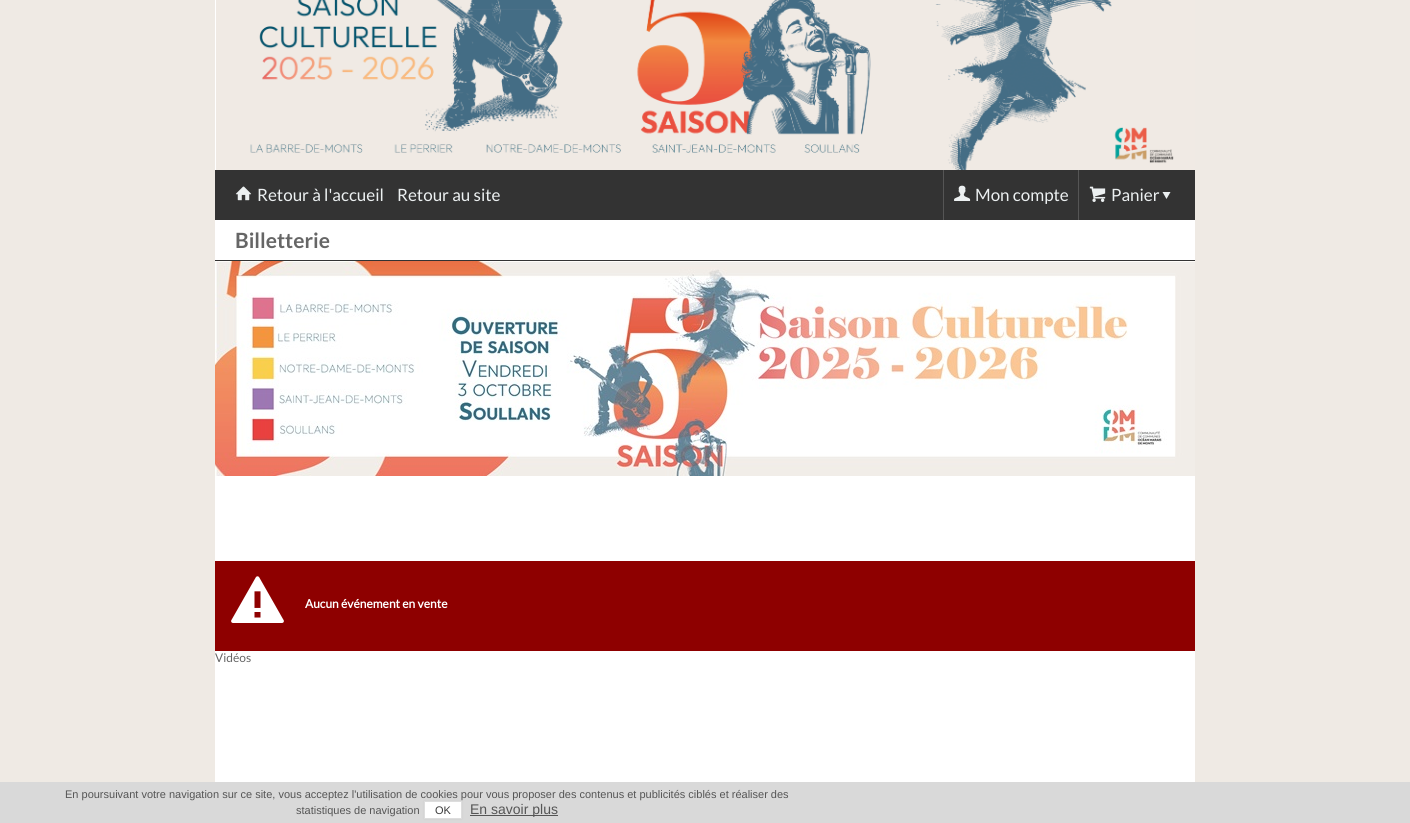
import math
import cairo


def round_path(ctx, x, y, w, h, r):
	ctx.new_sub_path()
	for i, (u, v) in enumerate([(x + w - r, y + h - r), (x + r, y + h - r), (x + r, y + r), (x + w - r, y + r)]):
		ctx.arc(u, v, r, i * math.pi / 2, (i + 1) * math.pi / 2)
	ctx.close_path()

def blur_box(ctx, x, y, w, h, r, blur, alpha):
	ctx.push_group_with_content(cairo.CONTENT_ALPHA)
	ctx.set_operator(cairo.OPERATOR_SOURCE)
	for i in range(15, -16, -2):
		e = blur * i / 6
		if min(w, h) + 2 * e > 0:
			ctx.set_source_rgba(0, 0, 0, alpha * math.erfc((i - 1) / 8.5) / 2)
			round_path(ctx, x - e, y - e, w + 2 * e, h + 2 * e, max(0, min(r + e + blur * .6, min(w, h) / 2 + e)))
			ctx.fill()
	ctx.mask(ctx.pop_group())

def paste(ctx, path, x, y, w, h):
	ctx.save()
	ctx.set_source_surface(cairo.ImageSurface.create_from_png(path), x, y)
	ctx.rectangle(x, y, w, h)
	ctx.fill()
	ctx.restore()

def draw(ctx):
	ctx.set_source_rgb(1, 1, 1)
	ctx.paint()
	paste(ctx, 'media/1.png', 0, 0, 1410, 782)
	ctx.set_source_rgb(1, 1, 1)
	ctx.rectangle(215, 0, 1, 170)
	ctx.fill()
	paste(ctx, 'media/2.png', 216, 0, 979, 170)
	ctx.set_source_rgb(0.2, 0.2, 0.2)
	ctx.rectangle(215, 170, 980, 50)
	ctx.fill()
	paste(ctx, 'media/3.png', 235, 186, 17, 15)
	ctx.select_font_face('Lato')
	ctx.set_font_size(17)
	ctx.set_source_rgb(0.925, 0.941, 0.945)
	ctx.move_to(257, 201)
	ctx.show_text('Retour à l\'accueil')
	ctx.move_to(397, 201)
	ctx.show_text('Retour au site')
	ctx.set_source_rgb(0.333, 0.333, 0.333)
	ctx.rectangle(943, 170, 1, 50)
	ctx.fill()
	paste(ctx, 'media/4.png', 954, 185, 17, 16)
	ctx.set_source_rgb(0.925, 0.941, 0.945)
	ctx.move_to(975, 201)
	ctx.show_text('Mon compte')
	ctx.set_source_rgb(0.333, 0.333, 0.333)
	ctx.rectangle(1078, 170, 1, 50)
	ctx.fill()
	paste(ctx, 'media/5.png', 1089, 186, 17, 16)
	ctx.set_source_rgb(0.925, 0.941, 0.945)
	ctx.move_to(1111, 201)
	ctx.show_text('Panier')
	ctx.new_path()
	ctx.move_to(1170.5, 192)
	ctx.line_to(1162.5, 192)
	ctx.line_to(1166.5, 199)
	ctx.close_path()
	ctx.fill()
	ctx.set_source_rgb(1, 1, 1)
	ctx.rectangle(215, 220, 980, 40)
	ctx.fill()
	ctx.set_source_rgb(0.2, 0.2, 0.2)
	ctx.rectangle(215, 260, 980, 1)
	ctx.fill()
	ctx.select_font_face('Lato', cairo.FONT_SLANT_NORMAL, cairo.FONT_WEIGHT_BOLD)
	ctx.set_font_size(21)
	ctx.set_source_rgb(0.4, 0.4, 0.4)
	ctx.move_to(235, 248)
	ctx.show_text('Billetterie')
	ctx.set_source_rgb(1, 1, 1)
	ctx.rectangle(215, 261, 980, 300)
	ctx.fill()
	paste(ctx, 'media/6.png', 215, 261, 980, 215)
	ctx.set_source_rgb(0.557, 0, 0)
	ctx.rectangle(215, 561, 980, 90)
	ctx.fill()
	paste(ctx, 'media/7.png', 231, 576, 53, 47)
	ctx.select_font_face('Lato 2', cairo.FONT_SLANT_NORMAL, cairo.FONT_WEIGHT_BOLD)
	ctx.set_font_size(12)
	ctx.set_source_rgb(1, 1, 1)
	ctx.move_to(305, 608)
	ctx.show_text('Aucun événement en vente')
	ctx.rectangle(215, 651, 980, 131)
	ctx.fill()
	ctx.select_font_face('Lato')
	ctx.set_source_rgb(0.4, 0.4, 0.4)
	ctx.move_to(215, 662)
	ctx.show_text('Vidéos')
	ctx.set_source_rgb(0.851, 0.851, 0.851)
	ctx.rectangle(0, 782, 1410, 41)
	ctx.fill()
	ctx.select_font_face('Liberation Sans')
	ctx.set_font_size(11)
	ctx.set_source_rgb(0.333, 0.333, 0.333)
	ctx.move_to(65, 798)
	ctx.show_text('En poursuivant votre navigation sur ce site, vous acceptez l\'utilisation de cookies pour vous proposer des contenus et publicités ciblés et réaliser des')
	ctx.move_to(296, 814)
	ctx.show_text('statistiques de navigation')
	ctx.set_source_rgb(0.8, 0.8, 0.8)
	blur_box(ctx, 424, 801, 38, 18, 0, 1, 1)
	ctx.set_source_rgb(1, 1, 1)
	ctx.rectangle(424.5, 801.5, 37, 17)
	ctx.fill_preserve()
	ctx.set_source_rgb(0.867, 0.867, 0.867)
	ctx.set_line_width(1)
	ctx.stroke()
	ctx.set_source_rgb(0.231, 0.231, 0.231)
	ctx.move_to(435, 814)
	ctx.show_text('OK')
	ctx.set_source_rgb(0.333, 0.333, 0.333)
	ctx.rectangle(470, 815, 88, 1)
	ctx.fill()
	ctx.set_font_size(14)
	ctx.move_to(470, 814)
	ctx.show_text('En savoir plus')


surface = cairo.ImageSurface(cairo.FORMAT_RGB24, 1410, 823)
ctx = cairo.Context(surface)
options = cairo.FontOptions()
options.set_hint_metrics(cairo.HINT_METRICS_OFF)
options.set_hint_style(cairo.HINT_STYLE_NONE)
ctx.set_font_options(options)
ctx.set_miter_limit(4)
draw(ctx)
surface.write_to_png('image.png')
